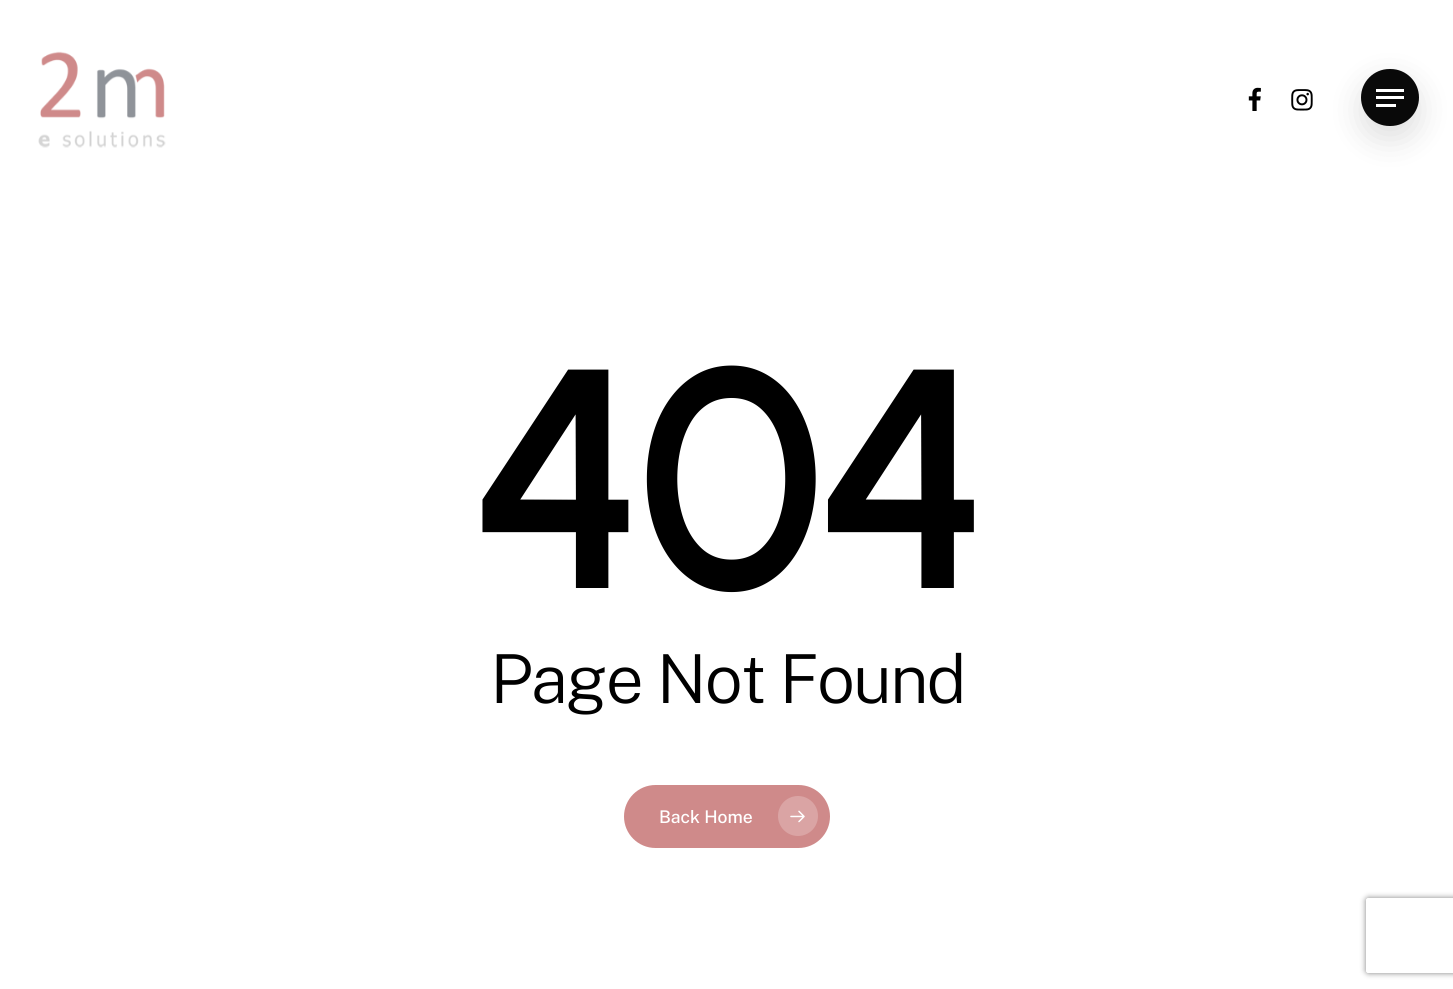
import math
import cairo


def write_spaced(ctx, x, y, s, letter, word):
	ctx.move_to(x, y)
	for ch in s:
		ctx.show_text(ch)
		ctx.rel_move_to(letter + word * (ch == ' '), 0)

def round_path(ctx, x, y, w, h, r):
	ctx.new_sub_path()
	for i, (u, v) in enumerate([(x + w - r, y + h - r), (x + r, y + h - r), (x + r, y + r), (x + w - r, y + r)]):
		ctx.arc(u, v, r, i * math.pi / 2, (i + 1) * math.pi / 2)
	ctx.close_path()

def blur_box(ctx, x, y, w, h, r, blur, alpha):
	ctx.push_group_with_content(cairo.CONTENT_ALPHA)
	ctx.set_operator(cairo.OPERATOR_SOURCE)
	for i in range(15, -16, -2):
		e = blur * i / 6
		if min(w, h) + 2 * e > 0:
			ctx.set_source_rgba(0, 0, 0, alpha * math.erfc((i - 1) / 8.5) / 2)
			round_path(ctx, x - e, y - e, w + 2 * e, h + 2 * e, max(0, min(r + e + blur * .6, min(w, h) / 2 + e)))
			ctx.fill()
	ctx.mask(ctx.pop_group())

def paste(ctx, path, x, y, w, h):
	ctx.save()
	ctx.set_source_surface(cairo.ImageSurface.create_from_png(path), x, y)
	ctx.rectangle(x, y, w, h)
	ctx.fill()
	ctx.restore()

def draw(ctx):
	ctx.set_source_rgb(1, 1, 1)
	ctx.paint()
	paste(ctx, 'media/1.png', 38, 51, 128, 97)
	paste(ctx, 'media/2.png', 1248, 87, 13, 24)
	paste(ctx, 'media/3.png', 1291, 89, 22, 22)
	ctx.set_source_rgb(0, 0, 0)
	blur_box(ctx, 1361, 81, 58, 58, 29, 15.5, 0.13)
	ctx.set_source_rgb(0.039, 0.039, 0.039)
	round_path(ctx, 1361, 69, 58, 57, 28.5)
	ctx.fill()
	ctx.set_source_rgb(1, 1, 1)
	ctx.rectangle(1376, 89, 28, 3)
	ctx.rectangle(1376, 104, 20, 3)
	ctx.rectangle(1376, 96, 28, 3)
	ctx.fill()
	ctx.select_font_face('Urbanist SemiBold')
	ctx.set_font_size(312)
	ctx.set_source_rgb(0, 0, 0)
	write_spaced(ctx, 470, 588, '404', -9.5, 0)
	ctx.select_font_face('Public Sans Light')
	ctx.set_font_size(67.5)
	write_spaced(ctx, 490, 703, 'Page Not Found', -2, 0)
	ctx.set_source_rgb(0.812, 0.541, 0.541)
	round_path(ctx, 624, 785, 206, 63, 31.5)
	ctx.fill()
	ctx.select_font_face('Public Sans Medium')
	ctx.set_font_size(17.5)
	ctx.set_source_rgb(1, 1, 1)
	ctx.move_to(659, 823)
	ctx.show_text('Back Home')
	ctx.set_source_rgb(0.855, 0.643, 0.643)
	ctx.new_path()
	ctx.arc(798, 816, 20, 0, 2 * math.pi)
	ctx.fill()
	paste(ctx, 'media/4.png', 790, 810, 15, 13)
	ctx.save()
	ctx.set_fill_rule(cairo.FILL_RULE_EVEN_ODD)
	ctx.new_path()
	ctx.move_to(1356, 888)
	ctx.line_to(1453, 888)
	ctx.line_to(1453, 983)
	ctx.line_to(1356, 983)
	ctx.close_path()
	ctx.move_to(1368.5, 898)
	ctx.line_to(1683.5, 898)
	ctx.curve_to(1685, 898, 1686, 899, 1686, 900.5)
	ctx.line_to(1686, 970.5)
	ctx.curve_to(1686, 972, 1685, 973, 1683.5, 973)
	ctx.line_to(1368.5, 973)
	ctx.curve_to(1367, 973, 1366, 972, 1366, 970.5)
	ctx.line_to(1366, 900.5)
	ctx.curve_to(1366, 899, 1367, 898, 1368.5, 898)
	ctx.close_path()
	ctx.clip()
	ctx.set_source_rgb(0.502, 0.502, 0.502)
	blur_box(ctx, 1366, 898, 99, 75, 2.5, 3, 1)
	ctx.restore()


surface = cairo.ImageSurface(cairo.FORMAT_RGB24, 1453, 989)
ctx = cairo.Context(surface)
options = cairo.FontOptions()
options.set_hint_metrics(cairo.HINT_METRICS_OFF)
options.set_hint_style(cairo.HINT_STYLE_NONE)
ctx.set_font_options(options)
ctx.set_miter_limit(4)
draw(ctx)
surface.write_to_png('image.png')
